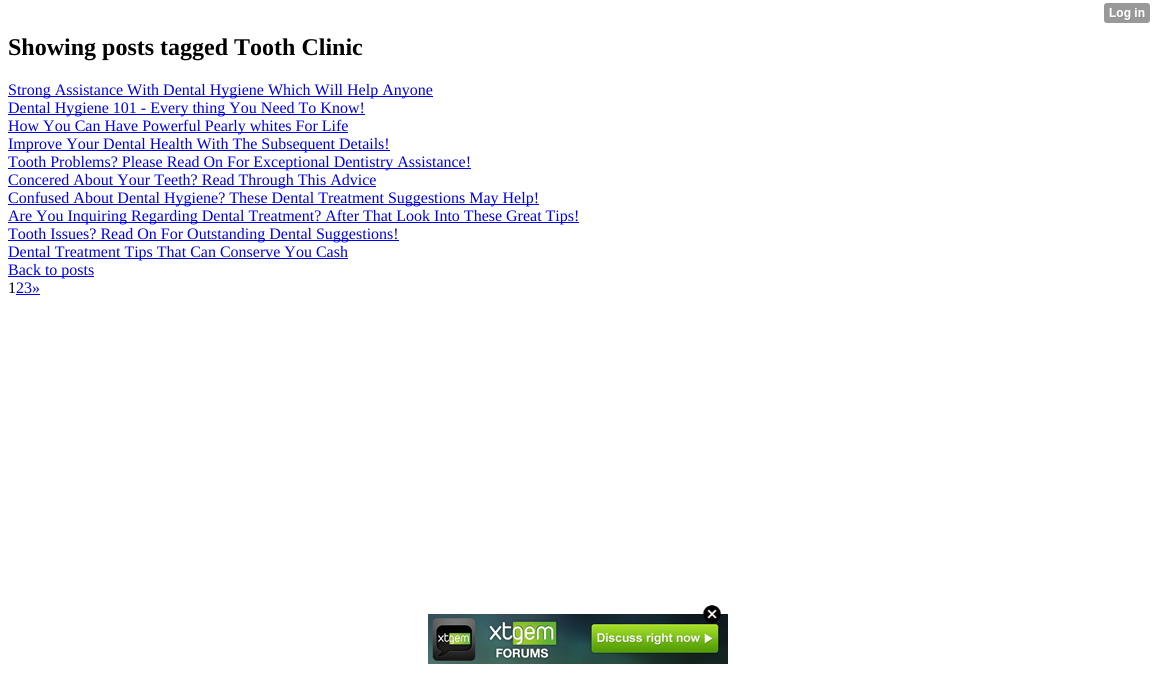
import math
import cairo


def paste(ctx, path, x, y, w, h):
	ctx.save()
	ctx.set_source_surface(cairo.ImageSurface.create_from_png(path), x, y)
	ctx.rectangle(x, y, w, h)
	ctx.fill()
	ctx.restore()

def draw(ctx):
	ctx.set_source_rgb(1, 1, 1)
	ctx.paint()
	paste(ctx, 'media/1.png', 1104, 3, 46, 20)
	ctx.select_font_face('Liberation Serif', cairo.FONT_SLANT_NORMAL, cairo.FONT_WEIGHT_BOLD)
	ctx.set_font_size(24)
	ctx.set_source_rgb(0, 0, 0)
	ctx.move_to(8, 55)
	ctx.show_text('Showing posts tagged Tooth Clinic')
	ctx.set_source_rgb(0, 0, 0.933)
	ctx.rectangle(8, 96, 425, 1)
	ctx.fill()
	ctx.select_font_face('Liberation Serif')
	ctx.set_font_size(16)
	ctx.move_to(8, 95)
	ctx.show_text('Strong Assistance With Dental Hygiene Which Will Help Anyone')
	ctx.rectangle(8, 114, 357, 1)
	ctx.fill()
	ctx.move_to(8, 113)
	ctx.show_text('Dental Hygiene 101 - Every thing You Need To Know!')
	ctx.rectangle(8, 132, 340, 1)
	ctx.fill()
	ctx.move_to(8, 131)
	ctx.show_text('How You Can Have Powerful Pearly whites For Life')
	ctx.rectangle(8, 150, 382, 1)
	ctx.fill()
	ctx.move_to(8, 149)
	ctx.show_text('Improve Your Dental Health With The Subsequent Details!')
	ctx.rectangle(8, 168, 463, 1)
	ctx.fill()
	ctx.move_to(8, 167)
	ctx.show_text('Tooth Problems? Please Read On For Exceptional Dentistry Assistance!')
	ctx.rectangle(8, 186, 368, 1)
	ctx.fill()
	ctx.move_to(8, 185)
	ctx.show_text('Concered About Your Teeth? Read Through This Advice')
	ctx.rectangle(8, 204, 531, 1)
	ctx.fill()
	ctx.move_to(8, 203)
	ctx.show_text('Confused About Dental Hygiene? These Dental Treatment Suggestions May Help!')
	ctx.rectangle(8, 222, 571, 1)
	ctx.fill()
	ctx.move_to(8, 221)
	ctx.show_text('Are You Inquiring Regarding Dental Treatment? After That Look Into These Great Tips!')
	ctx.rectangle(8, 240, 391, 1)
	ctx.fill()
	ctx.move_to(8, 239)
	ctx.show_text('Tooth Issues? Read On For Outstanding Dental Suggestions!')
	ctx.rectangle(8, 258, 340, 1)
	ctx.fill()
	ctx.move_to(8, 257)
	ctx.show_text('Dental Treatment Tips That Can Conserve You Cash')
	ctx.rectangle(8, 276, 86, 1)
	ctx.fill()
	ctx.move_to(8, 275)
	ctx.show_text('Back to posts')
	ctx.set_source_rgb(0, 0, 0)
	ctx.move_to(8, 293)
	ctx.show_text('1')
	ctx.set_source_rgb(0, 0, 0.933)
	ctx.move_to(16, 293)
	ctx.show_text('23»')
	ctx.rectangle(16, 294, 24, 1)
	ctx.fill()
	paste(ctx, 'media/3.png', 428, 614, 300, 50)
	paste(ctx, 'media/2.png', 703, 605, 18, 18)


surface = cairo.ImageSurface(cairo.FORMAT_RGB24, 1155, 675)
ctx = cairo.Context(surface)
options = cairo.FontOptions()
options.set_hint_metrics(cairo.HINT_METRICS_OFF)
options.set_hint_style(cairo.HINT_STYLE_NONE)
ctx.set_font_options(options)
ctx.set_miter_limit(4)
draw(ctx)
surface.write_to_png('image.png')
